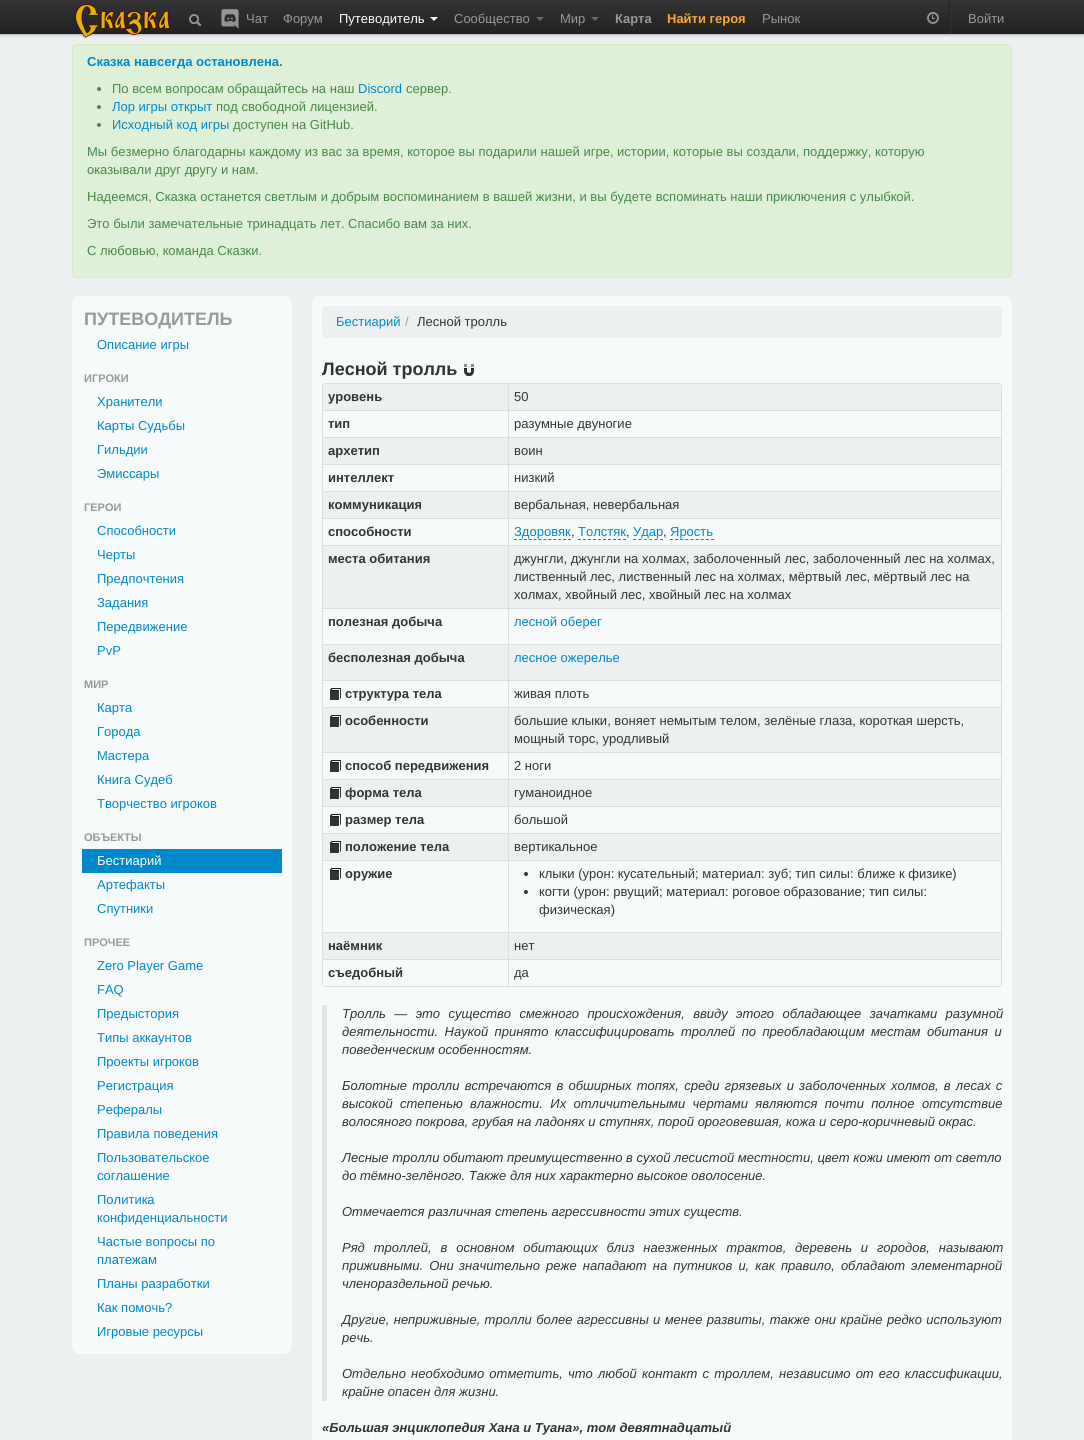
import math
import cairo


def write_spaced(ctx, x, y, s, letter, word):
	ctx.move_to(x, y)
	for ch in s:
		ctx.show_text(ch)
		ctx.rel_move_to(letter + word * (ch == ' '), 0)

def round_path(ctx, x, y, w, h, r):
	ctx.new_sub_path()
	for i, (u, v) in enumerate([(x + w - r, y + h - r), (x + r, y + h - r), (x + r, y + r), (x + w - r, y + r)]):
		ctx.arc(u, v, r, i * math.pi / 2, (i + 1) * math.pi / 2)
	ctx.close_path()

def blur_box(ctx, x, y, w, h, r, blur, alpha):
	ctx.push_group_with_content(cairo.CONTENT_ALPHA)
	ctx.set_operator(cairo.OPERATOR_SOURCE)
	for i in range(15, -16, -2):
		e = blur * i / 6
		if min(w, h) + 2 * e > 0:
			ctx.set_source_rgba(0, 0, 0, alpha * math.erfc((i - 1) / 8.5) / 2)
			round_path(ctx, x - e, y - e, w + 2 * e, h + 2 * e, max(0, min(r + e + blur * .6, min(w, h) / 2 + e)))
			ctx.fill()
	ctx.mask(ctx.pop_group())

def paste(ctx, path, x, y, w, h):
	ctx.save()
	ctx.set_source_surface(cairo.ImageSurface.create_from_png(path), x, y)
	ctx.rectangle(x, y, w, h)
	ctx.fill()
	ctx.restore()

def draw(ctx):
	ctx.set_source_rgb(0.922, 0.941, 0.941)
	ctx.paint()
	ctx.set_source_rgb(0, 0, 0)
	blur_box(ctx, 0, 1, 1084, 34, 0, 1.5, 0.25)
	gradient = cairo.LinearGradient(542, 0, 542, 34)
	gradient.add_color_stop_rgba(0, 0.2, 0.2, 0.2, 1)
	gradient.add_color_stop_rgba(1, 0.133, 0.133, 0.133, 1)
	ctx.set_source(gradient)
	ctx.rectangle(0, 0, 1084, 33)
	ctx.fill()
	ctx.set_source_rgb(0.122, 0.122, 0.122)
	ctx.rectangle(0, 33, 1084, 1)
	ctx.fill()
	paste(ctx, 'media/1.png', 75, 4, 96, 34)
	paste(ctx, 'media/2.png', 189, 14, 13, 13)
	paste(ctx, 'media/3.png', 221, 9, 18, 20)
	ctx.select_font_face('Liberation Sans')
	ctx.set_font_size(13)
	ctx.set_source_rgb(0.6, 0.6, 0.6)
	ctx.move_to(246, 23)
	ctx.show_text('Чат')
	ctx.move_to(283, 23)
	ctx.show_text('Форум')
	ctx.set_source_rgb(1, 1, 1)
	ctx.move_to(339, 23)
	ctx.show_text('Путеводитель')
	ctx.new_path()
	ctx.move_to(430, 17)
	ctx.line_to(438, 17)
	ctx.line_to(434, 21)
	ctx.close_path()
	ctx.fill()
	ctx.set_source_rgb(0.6, 0.6, 0.6)
	ctx.move_to(454, 23)
	ctx.show_text('Сообщество')
	ctx.set_source_rgb(0.416, 0.416, 0.416)
	ctx.new_path()
	ctx.move_to(536, 17)
	ctx.line_to(544, 17)
	ctx.line_to(540, 21)
	ctx.close_path()
	ctx.fill()
	ctx.set_source_rgb(0.6, 0.6, 0.6)
	ctx.move_to(560, 23)
	ctx.show_text('Мир')
	ctx.set_source_rgb(0.416, 0.416, 0.416)
	ctx.new_path()
	ctx.move_to(591, 17)
	ctx.line_to(599, 17)
	ctx.line_to(595, 21)
	ctx.close_path()
	ctx.fill()
	ctx.select_font_face('Liberation Sans', cairo.FONT_SLANT_NORMAL, cairo.FONT_WEIGHT_BOLD)
	ctx.set_source_rgb(0.6, 0.6, 0.6)
	ctx.move_to(615, 23)
	ctx.show_text('Карта')
	ctx.set_source_rgb(0.98, 0.655, 0.196)
	ctx.move_to(667, 23)
	ctx.show_text('Найти героя')
	ctx.select_font_face('Liberation Sans')
	ctx.set_source_rgb(0.6, 0.6, 0.6)
	ctx.move_to(762, 23)
	ctx.show_text('Рынок')
	paste(ctx, 'media/4.png', 927, 12, 12, 12)
	ctx.set_source_rgb(0.133, 0.133, 0.133)
	ctx.rectangle(949, 0, 1, 34)
	ctx.fill()
	ctx.set_source_rgb(0.2, 0.2, 0.2)
	ctx.rectangle(950, 0, 1, 34)
	ctx.fill()
	ctx.set_source_rgb(0.6, 0.6, 0.6)
	ctx.move_to(968, 23)
	ctx.show_text('Войти')
	ctx.set_source_rgb(0.875, 0.941, 0.847)
	round_path(ctx, 72.5, 44.5, 939, 233, 3.5)
	ctx.fill_preserve()
	ctx.set_source_rgb(0.839, 0.914, 0.776)
	ctx.set_line_width(1)
	ctx.stroke()
	ctx.select_font_face('Liberation Sans', cairo.FONT_SLANT_NORMAL, cairo.FONT_WEIGHT_BOLD)
	ctx.set_source_rgb(0, 0.533, 0.8)
	ctx.move_to(87, 66)
	ctx.show_text('Сказка навсегда остановлена')
	ctx.set_source_rgb(0.275, 0.533, 0.278)
	ctx.move_to(279, 66)
	ctx.show_text('.')
	ctx.new_path()
	ctx.arc(99, 89, 2, 0, 2 * math.pi)
	ctx.fill()
	ctx.select_font_face('Liberation Sans')
	ctx.move_to(112, 93)
	ctx.show_text('По всем вопросам обращайтесь на наш')
	ctx.set_source_rgb(0, 0.533, 0.8)
	ctx.move_to(358, 93)
	ctx.show_text('Discord')
	ctx.set_source_rgb(0.275, 0.533, 0.278)
	ctx.move_to(406, 93)
	ctx.show_text('сервер.')
	ctx.new_path()
	ctx.arc(99, 107, 2, 0, 2 * math.pi)
	ctx.fill()
	ctx.set_source_rgb(0, 0.533, 0.8)
	ctx.move_to(112, 111)
	ctx.show_text('Лор игры открыт')
	ctx.set_source_rgb(0.275, 0.533, 0.278)
	ctx.move_to(216, 111)
	ctx.show_text('под свободной лицензией.')
	ctx.new_path()
	ctx.arc(99, 125, 2, 0, 2 * math.pi)
	ctx.fill()
	ctx.set_source_rgb(0, 0.533, 0.8)
	ctx.move_to(112, 129)
	ctx.show_text('Исходный код игры')
	ctx.set_source_rgb(0.275, 0.533, 0.278)
	for x, y, s in [
		(233, 129, 'доступен на GitHub.'),
		(87, 156, 'Мы безмерно благодарны каждому из вас за время, которое вы подарили нашей игре, истории, которые вы создали, поддержку, которую'),
		(87, 174, 'оказывали друг другу и нам.'),
		(87, 201, 'Надеемся, Сказка останется светлым и добрым воспоминанием в вашей жизни, и вы будете вспоминать наши приключения с улыбкой.'),
		(87, 228, 'Это были замечательные тринадцать лет. Спасибо вам за них.'),
		(87, 255, 'С любовью, команда Сказки.'),
	]:
		ctx.move_to(x, y)
		ctx.show_text(s)
	ctx.set_source_rgb(0.961, 0.98, 0.98)
	round_path(ctx, 72, 296, 220, 1058, 8)
	ctx.fill()
	ctx.select_font_face('Liberation Sans', cairo.FONT_SLANT_NORMAL, cairo.FONT_WEIGHT_BOLD)
	ctx.set_font_size(18)
	ctx.set_source_rgb(0.6, 0.6, 0.6)
	ctx.move_to(84, 325)
	ctx.show_text('ПУТЕВОДИТЕЛЬ')
	ctx.select_font_face('Liberation Sans')
	ctx.set_font_size(13)
	ctx.set_source_rgb(0, 0.533, 0.8)
	ctx.move_to(97, 349)
	ctx.show_text('Описание игры')
	ctx.select_font_face('Liberation Sans', cairo.FONT_SLANT_NORMAL, cairo.FONT_WEIGHT_BOLD)
	ctx.set_font_size(11)
	ctx.set_source_rgb(0.6, 0.6, 0.6)
	ctx.move_to(84, 382)
	ctx.show_text('ИГРОКИ')
	ctx.select_font_face('Liberation Sans')
	ctx.set_font_size(13)
	ctx.set_source_rgb(0, 0.533, 0.8)
	for x, y, s in [
		(97, 406, 'Хранители'),
		(97, 430, 'Карты Судьбы'),
		(97, 454, 'Гильдии'),
		(97, 478, 'Эмиссары'),
	]:
		ctx.move_to(x, y)
		ctx.show_text(s)
	ctx.select_font_face('Liberation Sans', cairo.FONT_SLANT_NORMAL, cairo.FONT_WEIGHT_BOLD)
	ctx.set_font_size(11)
	ctx.set_source_rgb(0.6, 0.6, 0.6)
	ctx.move_to(84, 511)
	ctx.show_text('ГЕРОИ')
	ctx.select_font_face('Liberation Sans')
	ctx.set_font_size(13)
	ctx.set_source_rgb(0, 0.533, 0.8)
	for x, y, s in [
		(97, 535, 'Способности'),
		(97, 559, 'Черты'),
		(97, 583, 'Предпочтения'),
		(97, 607, 'Задания'),
		(97, 631, 'Передвижение'),
		(97, 655, 'PvP'),
	]:
		ctx.move_to(x, y)
		ctx.show_text(s)
	ctx.select_font_face('Liberation Sans', cairo.FONT_SLANT_NORMAL, cairo.FONT_WEIGHT_BOLD)
	ctx.set_font_size(11)
	ctx.set_source_rgb(0.6, 0.6, 0.6)
	ctx.move_to(84, 688)
	ctx.show_text('МИР')
	ctx.select_font_face('Liberation Sans')
	ctx.set_font_size(13)
	ctx.set_source_rgb(0, 0.533, 0.8)
	for x, y, s in [
		(97, 712, 'Карта'),
		(97, 736, 'Города'),
		(97, 760, 'Мастера'),
		(97, 784, 'Книга Судеб'),
		(97, 808, 'Творчество игроков'),
	]:
		ctx.move_to(x, y)
		ctx.show_text(s)
	ctx.select_font_face('Liberation Sans', cairo.FONT_SLANT_NORMAL, cairo.FONT_WEIGHT_BOLD)
	ctx.set_font_size(11)
	ctx.set_source_rgb(0.6, 0.6, 0.6)
	ctx.move_to(84, 841)
	ctx.show_text('ОБЪЕКТЫ')
	ctx.set_source_rgb(0, 0.533, 0.8)
	ctx.rectangle(82, 849, 200, 24)
	ctx.fill()
	ctx.select_font_face('Liberation Sans')
	ctx.set_font_size(13)
	ctx.set_source_rgb(1, 1, 1)
	ctx.move_to(97, 865)
	ctx.show_text('Бестиарий')
	ctx.set_source_rgb(0, 0.533, 0.8)
	ctx.move_to(97, 889)
	ctx.show_text('Артефакты')
	ctx.move_to(97, 913)
	ctx.show_text('Спутники')
	ctx.select_font_face('Liberation Sans', cairo.FONT_SLANT_NORMAL, cairo.FONT_WEIGHT_BOLD)
	ctx.set_font_size(11)
	ctx.set_source_rgb(0.6, 0.6, 0.6)
	ctx.move_to(84, 946)
	ctx.show_text('ПРОЧЕЕ')
	ctx.select_font_face('Liberation Sans')
	ctx.set_font_size(13)
	ctx.set_source_rgb(0, 0.533, 0.8)
	for x, y, s in [
		(97, 970, 'Zero Player Game'),
		(97, 994, 'FAQ'),
		(97, 1018, 'Предыстория'),
		(97, 1042, 'Типы аккаунтов'),
		(97, 1066, 'Проекты игроков'),
		(97, 1090, 'Регистрация'),
		(97, 1114, 'Рефералы'),
		(97, 1138, 'Правила поведения'),
		(97, 1162, 'Пользовательское'),
		(97, 1180, 'соглашение'),
		(97, 1204, 'Политика'),
		(97, 1222, 'конфиденциальности'),
		(97, 1246, 'Частые вопросы по'),
		(97, 1264, 'платежам'),
		(97, 1288, 'Планы разработки'),
		(97, 1312, 'Как помочь?'),
		(97, 1336, 'Игровые ресурсы'),
	]:
		ctx.move_to(x, y)
		ctx.show_text(s)
	ctx.set_source_rgb(0.961, 0.98, 0.98)
	round_path(ctx, 312, 296, 700, 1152, 8)
	ctx.fill()
	ctx.set_source_rgb(0.922, 0.941, 0.941)
	round_path(ctx, 322, 306, 680, 32, 3)
	ctx.fill()
	ctx.set_source_rgb(0, 0.533, 0.8)
	ctx.move_to(336, 326)
	ctx.show_text('Бестиарий')
	ctx.set_source_rgb(0.6, 0.6, 0.6)
	ctx.move_to(405, 326)
	ctx.show_text('/')
	ctx.set_source_rgb(0.2, 0.2, 0.2)
	ctx.move_to(417, 326)
	ctx.show_text('Лесной тролль')
	ctx.select_font_face('Liberation Sans', cairo.FONT_SLANT_NORMAL, cairo.FONT_WEIGHT_BOLD)
	ctx.set_font_size(18)
	ctx.move_to(322, 375)
	ctx.show_text('Лесной тролль')
	paste(ctx, 'media/5.png', 464, 364, 10, 12)
	ctx.set_source_rgb(0.867, 0.867, 0.867)
	ctx.set_fill_rule(cairo.FILL_RULE_EVEN_ODD)
	ctx.new_path()
	ctx.move_to(326, 383)
	ctx.line_to(998, 383)
	ctx.curve_to(1000, 383, 1002, 385, 1002, 387)
	ctx.line_to(1002, 983)
	ctx.curve_to(1002, 985, 1000, 987, 998, 987)
	ctx.line_to(326, 987)
	ctx.curve_to(324, 987, 322, 985, 322, 983)
	ctx.line_to(322, 387)
	ctx.curve_to(322, 385, 324, 383, 326, 383)
	ctx.close_path()
	ctx.move_to(326, 384)
	ctx.line_to(998, 384)
	ctx.curve_to(1000, 384, 1001, 385, 1001, 387)
	ctx.line_to(1001, 983)
	ctx.curve_to(1001, 985, 1000, 986, 998, 986)
	ctx.line_to(326, 986)
	ctx.curve_to(324, 986, 322, 985, 322, 983)
	ctx.line_to(322, 387)
	ctx.curve_to(322, 385, 324, 384, 326, 384)
	ctx.close_path()
	ctx.fill()
	ctx.set_source_rgb(0.922, 0.941, 0.941)
	ctx.rectangle(323, 384, 185, 26)
	ctx.fill()
	ctx.set_source_rgb(0.867, 0.867, 0.867)
	ctx.rectangle(322, 384, 1, 26)
	ctx.fill()
	ctx.set_font_size(13)
	ctx.set_source_rgb(0.2, 0.2, 0.2)
	ctx.move_to(328, 401)
	ctx.show_text('уровень')
	ctx.set_source_rgb(0.922, 0.941, 0.941)
	ctx.new_path()
	ctx.move_to(508, 384)
	ctx.line_to(997, 384)
	ctx.curve_to(999, 384, 1001, 386, 1001, 388)
	ctx.line_to(1001, 410)
	ctx.line_to(508, 410)
	ctx.close_path()
	ctx.fill()
	ctx.set_source_rgb(0.867, 0.867, 0.867)
	ctx.rectangle(508, 384, 1, 26)
	ctx.fill()
	ctx.select_font_face('Liberation Sans')
	ctx.set_source_rgb(0.2, 0.2, 0.2)
	ctx.move_to(514, 401)
	ctx.show_text('50')
	ctx.set_source_rgb(0.867, 0.867, 0.867)
	ctx.rectangle(322, 410, 679, 1)
	ctx.fill()
	ctx.rectangle(322, 410, 1, 27)
	ctx.fill()
	ctx.select_font_face('Liberation Sans', cairo.FONT_SLANT_NORMAL, cairo.FONT_WEIGHT_BOLD)
	ctx.set_source_rgb(0.2, 0.2, 0.2)
	ctx.move_to(328, 428)
	ctx.show_text('тип')
	ctx.set_source_rgb(0.867, 0.867, 0.867)
	ctx.rectangle(508, 410, 1, 27)
	ctx.fill()
	ctx.select_font_face('Liberation Sans')
	ctx.set_source_rgb(0.2, 0.2, 0.2)
	ctx.move_to(514, 428)
	ctx.show_text('разумные двуногие')
	ctx.set_source_rgb(0.922, 0.941, 0.941)
	ctx.rectangle(323, 438, 185, 26)
	ctx.fill()
	ctx.set_source_rgb(0.867, 0.867, 0.867)
	ctx.rectangle(322, 437, 679, 1)
	ctx.rectangle(322, 437, 1, 27)
	ctx.fill()
	ctx.select_font_face('Liberation Sans', cairo.FONT_SLANT_NORMAL, cairo.FONT_WEIGHT_BOLD)
	ctx.set_source_rgb(0.2, 0.2, 0.2)
	ctx.move_to(328, 455)
	ctx.show_text('архетип')
	ctx.set_source_rgb(0.922, 0.941, 0.941)
	ctx.rectangle(509, 438, 492, 26)
	ctx.fill()
	ctx.set_source_rgb(0.867, 0.867, 0.867)
	ctx.rectangle(508, 437, 1, 27)
	ctx.fill()
	ctx.select_font_face('Liberation Sans')
	ctx.set_source_rgb(0.2, 0.2, 0.2)
	ctx.move_to(514, 455)
	ctx.show_text('воин')
	ctx.set_source_rgb(0.867, 0.867, 0.867)
	ctx.rectangle(322, 464, 679, 1)
	ctx.fill()
	ctx.rectangle(322, 464, 1, 27)
	ctx.fill()
	ctx.select_font_face('Liberation Sans', cairo.FONT_SLANT_NORMAL, cairo.FONT_WEIGHT_BOLD)
	ctx.set_source_rgb(0.2, 0.2, 0.2)
	ctx.move_to(328, 482)
	ctx.show_text('интеллект')
	ctx.set_source_rgb(0.867, 0.867, 0.867)
	ctx.rectangle(508, 464, 1, 27)
	ctx.fill()
	ctx.select_font_face('Liberation Sans')
	ctx.set_source_rgb(0.2, 0.2, 0.2)
	ctx.move_to(514, 482)
	ctx.show_text('низкий')
	ctx.set_source_rgb(0.922, 0.941, 0.941)
	ctx.rectangle(323, 492, 185, 26)
	ctx.fill()
	ctx.set_source_rgb(0.867, 0.867, 0.867)
	ctx.rectangle(322, 491, 679, 1)
	ctx.rectangle(322, 491, 1, 27)
	ctx.fill()
	ctx.select_font_face('Liberation Sans', cairo.FONT_SLANT_NORMAL, cairo.FONT_WEIGHT_BOLD)
	ctx.set_source_rgb(0.2, 0.2, 0.2)
	ctx.move_to(328, 509)
	ctx.show_text('коммуникация')
	ctx.set_source_rgb(0.922, 0.941, 0.941)
	ctx.rectangle(509, 492, 492, 26)
	ctx.fill()
	ctx.set_source_rgb(0.867, 0.867, 0.867)
	ctx.rectangle(508, 491, 1, 27)
	ctx.fill()
	ctx.select_font_face('Liberation Sans')
	ctx.set_source_rgb(0.2, 0.2, 0.2)
	ctx.move_to(514, 509)
	ctx.show_text('вербальная, невербальная')
	ctx.set_source_rgb(0.867, 0.867, 0.867)
	ctx.rectangle(322, 518, 679, 1)
	ctx.fill()
	ctx.rectangle(322, 518, 1, 27)
	ctx.fill()
	ctx.select_font_face('Liberation Sans', cairo.FONT_SLANT_NORMAL, cairo.FONT_WEIGHT_BOLD)
	ctx.set_source_rgb(0.2, 0.2, 0.2)
	ctx.move_to(328, 536)
	ctx.show_text('способности')
	ctx.set_source_rgb(0.867, 0.867, 0.867)
	ctx.rectangle(508, 518, 1, 27)
	ctx.fill()
	ctx.select_font_face('Liberation Sans')
	ctx.set_source_rgb(0, 0.533, 0.8)
	ctx.move_to(514, 536)
	ctx.show_text('Здоровяк')
	ctx.new_path()
	ctx.move_to(514, 539.5)
	ctx.line_to(571, 539.5)
	ctx.set_dash([3, 1.91])
	ctx.stroke()
	ctx.set_source_rgb(0.2, 0.2, 0.2)
	ctx.move_to(571, 536)
	ctx.show_text(',')
	ctx.set_source_rgb(0, 0.533, 0.8)
	ctx.move_to(578, 536)
	ctx.show_text('Толстяк')
	ctx.new_path()
	ctx.move_to(578, 539.5)
	ctx.line_to(626, 539.5)
	ctx.set_dash([3, 2])
	ctx.stroke()
	ctx.set_source_rgb(0.2, 0.2, 0.2)
	ctx.move_to(626, 536)
	ctx.show_text(',')
	ctx.set_source_rgb(0, 0.533, 0.8)
	ctx.move_to(633, 536)
	ctx.show_text('Удар')
	ctx.new_path()
	ctx.move_to(633, 539.5)
	ctx.line_to(663, 539.5)
	ctx.set_dash([3, 2.4])
	ctx.stroke()
	ctx.set_source_rgb(0.2, 0.2, 0.2)
	ctx.move_to(663, 536)
	ctx.show_text(',')
	ctx.set_source_rgb(0, 0.533, 0.8)
	ctx.move_to(670, 536)
	ctx.show_text('Ярость')
	ctx.new_path()
	ctx.move_to(670, 539.5)
	ctx.line_to(714, 539.5)
	ctx.set_dash([3, 2.12])
	ctx.stroke()
	ctx.set_source_rgb(0.922, 0.941, 0.941)
	ctx.rectangle(323, 546, 185, 62)
	ctx.fill()
	ctx.set_source_rgb(0.867, 0.867, 0.867)
	ctx.rectangle(322, 545, 679, 1)
	ctx.rectangle(322, 545, 1, 63)
	ctx.fill()
	ctx.select_font_face('Liberation Sans', cairo.FONT_SLANT_NORMAL, cairo.FONT_WEIGHT_BOLD)
	ctx.set_source_rgb(0.2, 0.2, 0.2)
	ctx.move_to(328, 563)
	ctx.show_text('места обитания')
	ctx.set_source_rgb(0.922, 0.941, 0.941)
	ctx.rectangle(509, 546, 492, 62)
	ctx.fill()
	ctx.set_source_rgb(0.867, 0.867, 0.867)
	ctx.rectangle(508, 545, 1, 63)
	ctx.fill()
	ctx.select_font_face('Liberation Sans')
	ctx.set_source_rgb(0.2, 0.2, 0.2)
	for x, y, s in [
		(514, 563, 'джунгли, джунгли на холмах, заболоченный лес, заболоченный лес на холмах,'),
		(514, 581, 'лиственный лес, лиственный лес на холмах, мёртвый лес, мёртвый лес на'),
		(514, 599, 'холмах, хвойный лес, хвойный лес на холмах'),
	]:
		ctx.move_to(x, y)
		ctx.show_text(s)
	ctx.set_source_rgb(0.867, 0.867, 0.867)
	ctx.rectangle(322, 608, 679, 1)
	ctx.fill()
	ctx.rectangle(322, 608, 1, 36)
	ctx.fill()
	ctx.select_font_face('Liberation Sans', cairo.FONT_SLANT_NORMAL, cairo.FONT_WEIGHT_BOLD)
	ctx.set_source_rgb(0.2, 0.2, 0.2)
	ctx.move_to(328, 626)
	ctx.show_text('полезная добыча')
	ctx.set_source_rgb(0.867, 0.867, 0.867)
	ctx.rectangle(508, 608, 1, 36)
	ctx.fill()
	ctx.select_font_face('Liberation Sans')
	ctx.set_source_rgb(0, 0.533, 0.8)
	ctx.move_to(514, 626)
	ctx.show_text('лесной оберег')
	ctx.set_source_rgb(0.922, 0.941, 0.941)
	ctx.rectangle(323, 645, 185, 35)
	ctx.fill()
	ctx.set_source_rgb(0.867, 0.867, 0.867)
	ctx.rectangle(322, 644, 679, 1)
	ctx.rectangle(322, 644, 1, 36)
	ctx.fill()
	ctx.select_font_face('Liberation Sans', cairo.FONT_SLANT_NORMAL, cairo.FONT_WEIGHT_BOLD)
	ctx.set_source_rgb(0.2, 0.2, 0.2)
	ctx.move_to(328, 662)
	ctx.show_text('бесполезная добыча')
	ctx.set_source_rgb(0.922, 0.941, 0.941)
	ctx.rectangle(509, 645, 492, 35)
	ctx.fill()
	ctx.set_source_rgb(0.867, 0.867, 0.867)
	ctx.rectangle(508, 644, 1, 36)
	ctx.fill()
	ctx.select_font_face('Liberation Sans')
	ctx.set_source_rgb(0, 0.533, 0.8)
	ctx.move_to(514, 662)
	ctx.show_text('лесное ожерелье')
	ctx.set_source_rgb(0.867, 0.867, 0.867)
	ctx.rectangle(322, 680, 679, 1)
	ctx.fill()
	ctx.rectangle(322, 680, 1, 27)
	ctx.fill()
	paste(ctx, 'media/6.png', 330, 688, 11, 12)
	ctx.select_font_face('Liberation Sans', cairo.FONT_SLANT_NORMAL, cairo.FONT_WEIGHT_BOLD)
	ctx.set_source_rgb(0.2, 0.2, 0.2)
	ctx.move_to(345, 698)
	ctx.show_text('структура тела')
	ctx.set_source_rgb(0.867, 0.867, 0.867)
	ctx.rectangle(508, 680, 1, 27)
	ctx.fill()
	ctx.select_font_face('Liberation Sans')
	ctx.set_source_rgb(0.2, 0.2, 0.2)
	ctx.move_to(514, 698)
	ctx.show_text('живая плоть')
	ctx.set_source_rgb(0.922, 0.941, 0.941)
	ctx.rectangle(323, 708, 185, 44)
	ctx.fill()
	ctx.set_source_rgb(0.867, 0.867, 0.867)
	ctx.rectangle(322, 707, 679, 1)
	ctx.rectangle(322, 707, 1, 45)
	ctx.fill()
	paste(ctx, 'media/7.png', 330, 715, 11, 13)
	ctx.select_font_face('Liberation Sans', cairo.FONT_SLANT_NORMAL, cairo.FONT_WEIGHT_BOLD)
	ctx.set_source_rgb(0.2, 0.2, 0.2)
	ctx.move_to(345, 725)
	ctx.show_text('особенности')
	ctx.set_source_rgb(0.922, 0.941, 0.941)
	ctx.rectangle(509, 708, 492, 44)
	ctx.fill()
	ctx.set_source_rgb(0.867, 0.867, 0.867)
	ctx.rectangle(508, 707, 1, 45)
	ctx.fill()
	ctx.select_font_face('Liberation Sans')
	ctx.set_source_rgb(0.2, 0.2, 0.2)
	ctx.move_to(514, 725)
	ctx.show_text('большие клыки, воняет немытым телом, зелёные глаза, короткая шерсть,')
	ctx.move_to(514, 743)
	ctx.show_text('мощный торс, уродливый')
	ctx.set_source_rgb(0.867, 0.867, 0.867)
	ctx.rectangle(322, 752, 679, 1)
	ctx.fill()
	ctx.rectangle(322, 752, 1, 27)
	ctx.fill()
	paste(ctx, 'media/6.png', 330, 760, 11, 12)
	ctx.select_font_face('Liberation Sans', cairo.FONT_SLANT_NORMAL, cairo.FONT_WEIGHT_BOLD)
	ctx.set_source_rgb(0.2, 0.2, 0.2)
	ctx.move_to(345, 770)
	ctx.show_text('способ передвижения')
	ctx.set_source_rgb(0.867, 0.867, 0.867)
	ctx.rectangle(508, 752, 1, 27)
	ctx.fill()
	ctx.select_font_face('Liberation Sans')
	ctx.set_source_rgb(0.2, 0.2, 0.2)
	ctx.move_to(514, 770)
	ctx.show_text('2 ноги')
	ctx.set_source_rgb(0.922, 0.941, 0.941)
	ctx.rectangle(323, 780, 185, 26)
	ctx.fill()
	ctx.set_source_rgb(0.867, 0.867, 0.867)
	ctx.rectangle(322, 779, 679, 1)
	ctx.rectangle(322, 779, 1, 27)
	ctx.fill()
	paste(ctx, 'media/7.png', 330, 787, 11, 13)
	ctx.select_font_face('Liberation Sans', cairo.FONT_SLANT_NORMAL, cairo.FONT_WEIGHT_BOLD)
	ctx.set_source_rgb(0.2, 0.2, 0.2)
	ctx.move_to(345, 797)
	ctx.show_text('форма тела')
	ctx.set_source_rgb(0.922, 0.941, 0.941)
	ctx.rectangle(509, 780, 492, 26)
	ctx.fill()
	ctx.set_source_rgb(0.867, 0.867, 0.867)
	ctx.rectangle(508, 779, 1, 27)
	ctx.fill()
	ctx.select_font_face('Liberation Sans')
	ctx.set_source_rgb(0.2, 0.2, 0.2)
	ctx.move_to(514, 797)
	ctx.show_text('гуманоидное')
	ctx.set_source_rgb(0.867, 0.867, 0.867)
	ctx.rectangle(322, 806, 679, 1)
	ctx.fill()
	ctx.rectangle(322, 806, 1, 27)
	ctx.fill()
	paste(ctx, 'media/6.png', 330, 814, 11, 12)
	ctx.select_font_face('Liberation Sans', cairo.FONT_SLANT_NORMAL, cairo.FONT_WEIGHT_BOLD)
	ctx.set_source_rgb(0.2, 0.2, 0.2)
	ctx.move_to(345, 824)
	ctx.show_text('размер тела')
	ctx.set_source_rgb(0.867, 0.867, 0.867)
	ctx.rectangle(508, 806, 1, 27)
	ctx.fill()
	ctx.select_font_face('Liberation Sans')
	ctx.set_source_rgb(0.2, 0.2, 0.2)
	ctx.move_to(514, 824)
	ctx.show_text('большой')
	ctx.set_source_rgb(0.922, 0.941, 0.941)
	ctx.rectangle(323, 834, 185, 26)
	ctx.fill()
	ctx.set_source_rgb(0.867, 0.867, 0.867)
	ctx.rectangle(322, 833, 679, 1)
	ctx.rectangle(322, 833, 1, 27)
	ctx.fill()
	paste(ctx, 'media/7.png', 330, 841, 11, 13)
	ctx.select_font_face('Liberation Sans', cairo.FONT_SLANT_NORMAL, cairo.FONT_WEIGHT_BOLD)
	ctx.set_source_rgb(0.2, 0.2, 0.2)
	ctx.move_to(345, 851)
	ctx.show_text('положение тела')
	ctx.set_source_rgb(0.922, 0.941, 0.941)
	ctx.rectangle(509, 834, 492, 26)
	ctx.fill()
	ctx.set_source_rgb(0.867, 0.867, 0.867)
	ctx.rectangle(508, 833, 1, 27)
	ctx.fill()
	ctx.select_font_face('Liberation Sans')
	ctx.set_source_rgb(0.2, 0.2, 0.2)
	ctx.move_to(514, 851)
	ctx.show_text('вертикальное')
	ctx.set_source_rgb(0.867, 0.867, 0.867)
	ctx.rectangle(322, 860, 679, 1)
	ctx.fill()
	ctx.rectangle(322, 860, 1, 72)
	ctx.fill()
	paste(ctx, 'media/6.png', 330, 868, 11, 12)
	ctx.select_font_face('Liberation Sans', cairo.FONT_SLANT_NORMAL, cairo.FONT_WEIGHT_BOLD)
	ctx.set_source_rgb(0.2, 0.2, 0.2)
	ctx.move_to(345, 878)
	ctx.show_text('оружие')
	ctx.set_source_rgb(0.867, 0.867, 0.867)
	ctx.rectangle(508, 860, 1, 72)
	ctx.fill()
	ctx.set_source_rgb(0.2, 0.2, 0.2)
	ctx.arc(526, 874, 2, 0, 2 * math.pi)
	ctx.fill()
	ctx.select_font_face('Liberation Sans')
	ctx.move_to(539, 878)
	ctx.show_text('клыки (урон: кусательный; материал: зуб; тип силы: ближе к физике)')
	ctx.new_path()
	ctx.arc(526, 892, 2, 0, 2 * math.pi)
	ctx.fill()
	ctx.move_to(539, 896)
	ctx.show_text('когти (урон: рвущий; материал: роговое образование; тип силы:')
	ctx.move_to(539, 914)
	ctx.show_text('физическая)')
	ctx.set_source_rgb(0.922, 0.941, 0.941)
	ctx.rectangle(323, 933, 185, 26)
	ctx.fill()
	ctx.set_source_rgb(0.867, 0.867, 0.867)
	ctx.rectangle(322, 932, 679, 1)
	ctx.rectangle(322, 932, 1, 27)
	ctx.fill()
	ctx.select_font_face('Liberation Sans', cairo.FONT_SLANT_NORMAL, cairo.FONT_WEIGHT_BOLD)
	ctx.set_source_rgb(0.2, 0.2, 0.2)
	ctx.move_to(328, 950)
	ctx.show_text('наёмник')
	ctx.set_source_rgb(0.922, 0.941, 0.941)
	ctx.rectangle(509, 933, 492, 26)
	ctx.fill()
	ctx.set_source_rgb(0.867, 0.867, 0.867)
	ctx.rectangle(508, 932, 1, 27)
	ctx.fill()
	ctx.select_font_face('Liberation Sans')
	ctx.set_source_rgb(0.2, 0.2, 0.2)
	ctx.move_to(514, 950)
	ctx.show_text('нет')
	ctx.set_source_rgb(0.961, 0.98, 0.98)
	ctx.rectangle(323, 985, 2, 1)
	ctx.fill()
	ctx.set_source_rgb(0.867, 0.867, 0.867)
	ctx.rectangle(322, 959, 679, 1)
	ctx.rectangle(322, 959, 1, 27)
	ctx.fill()
	ctx.select_font_face('Liberation Sans', cairo.FONT_SLANT_NORMAL, cairo.FONT_WEIGHT_BOLD)
	ctx.set_source_rgb(0.2, 0.2, 0.2)
	ctx.move_to(328, 977)
	ctx.show_text('съедобный')
	ctx.set_source_rgb(0.867, 0.867, 0.867)
	ctx.rectangle(508, 959, 1, 27)
	ctx.fill()
	ctx.select_font_face('Liberation Sans')
	ctx.set_source_rgb(0.2, 0.2, 0.2)
	ctx.move_to(514, 977)
	ctx.show_text('да')
	ctx.set_source_rgb(0.882, 0.902, 0.902)
	ctx.rectangle(322, 1005, 5, 396)
	ctx.fill()
	ctx.select_font_face('Liberation Sans', cairo.FONT_SLANT_ITALIC)
	ctx.set_source_rgb(0.2, 0.2, 0.2)
	write_spaced(ctx, 342, 1018, 'Тролль — это существо смежного происхождения, ввиду этого обладающее зачатками разумной', 0, 4.75)
	write_spaced(ctx, 342, 1036, 'деятельности. Наукой принято классифицировать троллей по преобладающим местам обитания и', 0, 2.75)
	ctx.move_to(342, 1054)
	ctx.show_text('поведенческим особенностям.')
	write_spaced(ctx, 342, 1090, 'Болотные тролли встречаются в обширных топях, среди грязевых и заболоченных холмов, в лесах с', 0, 1.6)
	write_spaced(ctx, 342, 1108, 'высокой степенью влажности. Их отличительными чертами являются почти полное отсутствие', 0, 3.75)
	for x, y, s in [
		(342, 1126, 'волосяного покрова, грубая на ладонях и ступнях, порой ороговевшая, кожа и серо-коричневый окрас.'),
		(342, 1162, 'Лесные тролли обитают преимущественно в сухой лесистой местности, цвет кожи имеют от светло'),
		(342, 1180, 'до тёмно-зелёного. Также для них характерно высокое оволосение.'),
		(342, 1216, 'Отмечается различная степень агрессивности этих существ.'),
	]:
		ctx.move_to(x, y)
		ctx.show_text(s)
	write_spaced(ctx, 342, 1252, 'Ряд троллей, в основном обитающих близ наезженных трактов, деревень и городов, называют', 0, 5.25)
	write_spaced(ctx, 342, 1270, 'приживными. Они', 0, 2.5)
	write_spaced(ctx, 459, 1270, 'значительно реже нападают на путников и, как правило, обладают элементарной', 0, 2.5)
	ctx.move_to(342, 1288)
	ctx.show_text('членораздельной речью.')
	write_spaced(ctx, 342, 1324, 'Другие, неприживные, тролли более агрессивны и менее развиты, также они крайне редко используют', 0, 0.75)
	ctx.move_to(342, 1342)
	ctx.show_text('речь.')
	write_spaced(ctx, 342, 1378, 'Отдельно необходимо отметить, что любой контакт с троллем, независимо от его классификации,', 0, 1.5)
	ctx.move_to(342, 1396)
	ctx.show_text('крайне опасен для жизни.')
	ctx.select_font_face('Liberation Sans', cairo.FONT_SLANT_ITALIC, cairo.FONT_WEIGHT_BOLD)
	ctx.move_to(322, 1432)
	ctx.show_text('«Большая энциклопедия Хана и Туана», том девятнадцатый')


surface = cairo.ImageSurface(cairo.FORMAT_RGB24, 1084, 1440)
ctx = cairo.Context(surface)
options = cairo.FontOptions()
options.set_hint_metrics(cairo.HINT_METRICS_OFF)
options.set_hint_style(cairo.HINT_STYLE_NONE)
ctx.set_font_options(options)
ctx.set_miter_limit(4)
draw(ctx)
surface.write_to_png('image.png')
